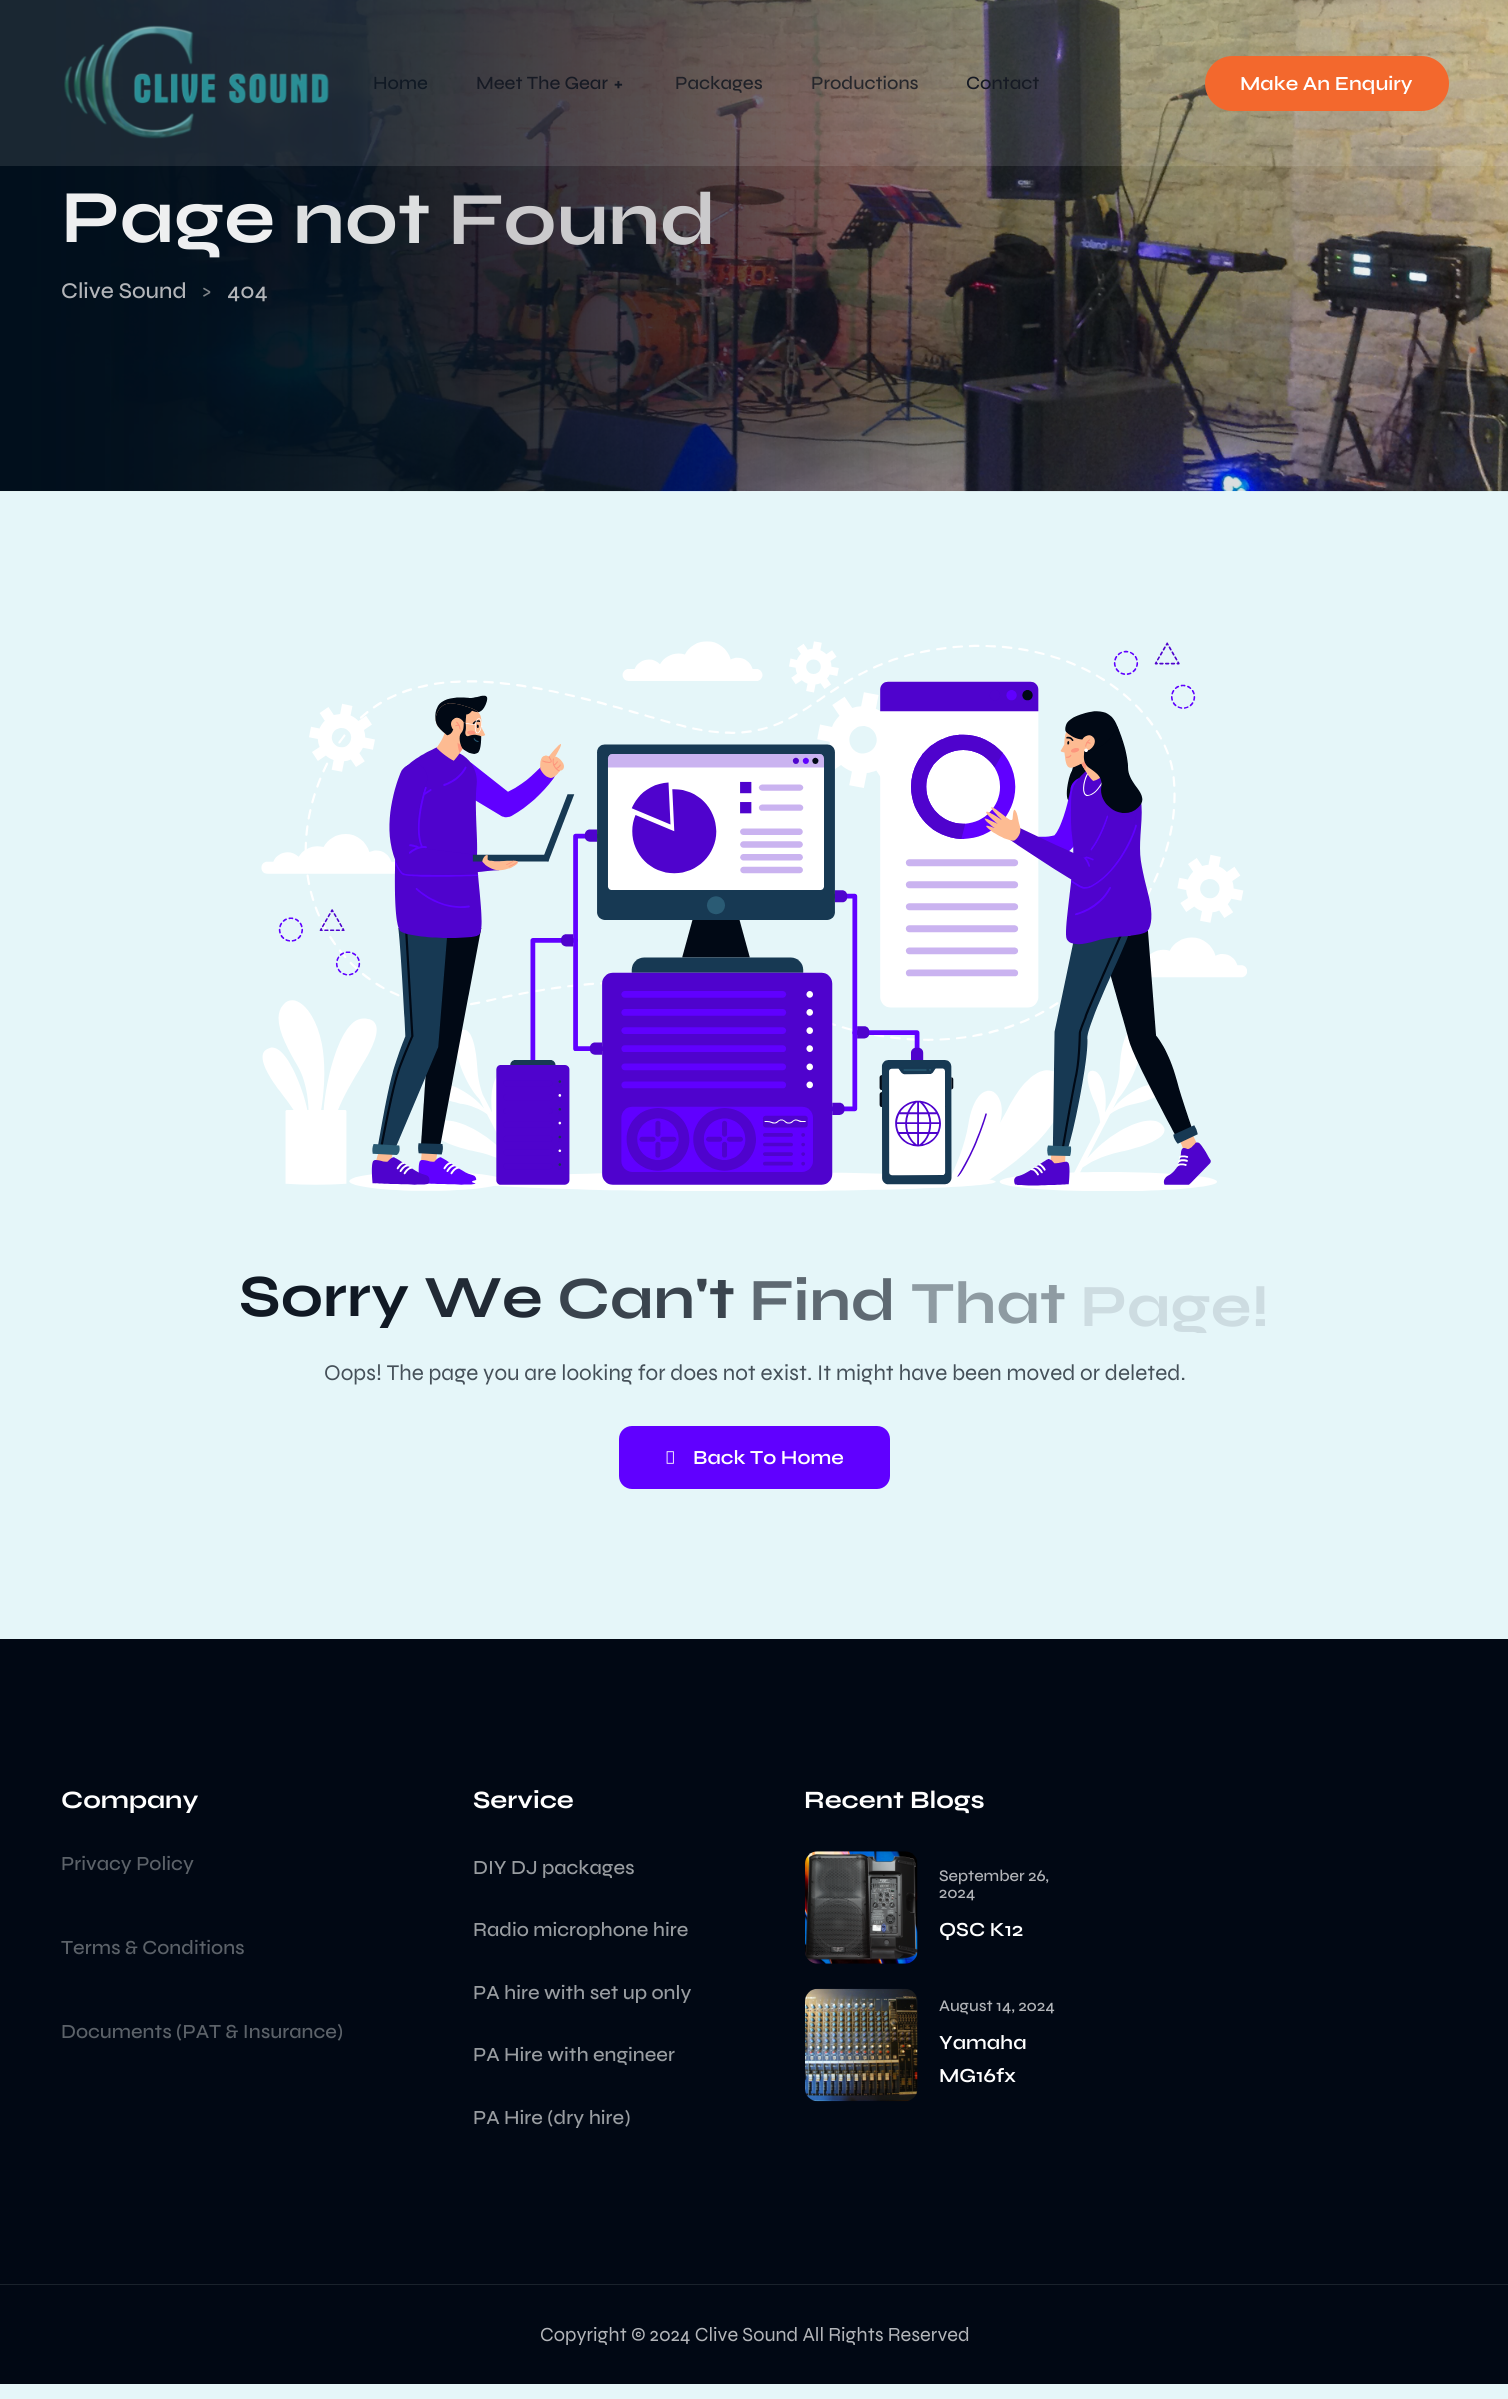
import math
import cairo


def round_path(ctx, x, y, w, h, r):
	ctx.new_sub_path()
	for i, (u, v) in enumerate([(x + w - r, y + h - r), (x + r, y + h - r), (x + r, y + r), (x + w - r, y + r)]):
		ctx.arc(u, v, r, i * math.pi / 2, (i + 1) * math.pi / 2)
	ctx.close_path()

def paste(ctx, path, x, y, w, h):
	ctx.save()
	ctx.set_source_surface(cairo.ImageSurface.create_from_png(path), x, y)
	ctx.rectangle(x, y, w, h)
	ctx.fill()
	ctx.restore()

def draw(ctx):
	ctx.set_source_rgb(0.898, 0.961, 0.976)
	ctx.paint()
	paste(ctx, 'media/2.png', 0, 0, 1508, 492)
	ctx.set_source_rgba(1, 1, 1, 0.1)
	ctx.rectangle(0, 0, 1508, 166)
	ctx.fill()
	paste(ctx, 'media/1.png', 64, 25, 265, 114)
	ctx.select_font_face('Syne Medium')
	ctx.set_font_size(18.75)
	ctx.set_source_rgb(0.063, 0.098, 0.141)
	ctx.move_to(373, 89)
	ctx.show_text('Home')
	ctx.set_source_rgb(0.086, 0.102, 0.141)
	ctx.move_to(476, 89)
	ctx.show_text('Meet The Gear')
	ctx.select_font_face('Noto Sans Black')
	ctx.set_font_size(15)
	ctx.move_to(614, 90)
	ctx.show_text('+')
	ctx.select_font_face('Syne Medium')
	ctx.set_font_size(18.75)
	ctx.set_source_rgb(0.122, 0.129, 0.157)
	ctx.move_to(675, 89)
	ctx.show_text('Packages')
	ctx.set_source_rgb(0.149, 0.153, 0.173)
	ctx.move_to(811, 89)
	ctx.show_text('Productions')
	ctx.set_source_rgb(0.086, 0.102, 0.141)
	ctx.move_to(966, 89)
	ctx.show_text('Contact')
	ctx.set_source_rgb(0.953, 0.408, 0.176)
	round_path(ctx, 1205, 56, 244, 55, 27.5)
	ctx.fill()
	ctx.select_font_face('Syne SemiBold')
	ctx.set_font_size(20)
	ctx.set_source_rgb(1, 1, 1)
	ctx.move_to(1240, 90)
	ctx.show_text('Make An Enquiry')
	ctx.select_font_face('Syne', cairo.FONT_SLANT_NORMAL, cairo.FONT_WEIGHT_BOLD)
	ctx.set_font_size(75)
	ctx.set_source_rgb(0.933, 0.937, 0.941)
	ctx.move_to(61, 242)
	ctx.show_text('Page')
	ctx.set_source_rgb(0.867, 0.875, 0.878)
	ctx.move_to(293, 243)
	ctx.show_text('not')
	ctx.set_source_rgb(0.796, 0.792, 0.8)
	ctx.move_to(448, 244)
	ctx.show_text('Found')
	ctx.select_font_face('Syne Medium')
	ctx.set_font_size(22.5)
	ctx.set_source_rgb(0.702, 0.71, 0.725)
	ctx.move_to(61, 298)
	ctx.show_text('Clive Sound')
	ctx.select_font_face('Syne')
	ctx.set_font_size(20)
	ctx.set_source_rgb(0.502, 0.522, 0.537)
	ctx.move_to(201, 298)
	ctx.show_text('>')
	ctx.select_font_face('Syne Medium')
	ctx.set_font_size(22.5)
	ctx.set_source_rgb(0.702, 0.71, 0.725)
	ctx.move_to(227, 298)
	ctx.show_text('404')
	paste(ctx, 'media/3.png', 261, 641, 986, 550)
	ctx.select_font_face('Syne', cairo.FONT_SLANT_NORMAL, cairo.FONT_WEIGHT_BOLD)
	ctx.set_font_size(60)
	ctx.set_source_rgb(0.063, 0.098, 0.141)
	ctx.move_to(239, 1316)
	ctx.show_text('Sorry')
	ctx.set_source_rgb(0.129, 0.165, 0.208)
	ctx.move_to(424, 1317)
	ctx.show_text('We')
	ctx.set_source_rgb(0.227, 0.267, 0.306)
	ctx.move_to(557, 1318)
	ctx.show_text('Can\'t')
	ctx.set_source_rgb(0.369, 0.412, 0.447)
	ctx.move_to(749, 1320)
	ctx.show_text('Find')
	ctx.set_source_rgb(0.557, 0.608, 0.635)
	ctx.move_to(911, 1323)
	ctx.show_text('That')
	ctx.save()
	ctx.rectangle(61, 1260, 1388, 73)
	ctx.clip()
	ctx.set_source_rgb(0.804, 0.863, 0.882)
	ctx.move_to(1080, 1326)
	ctx.show_text('Page!')
	ctx.restore()
	ctx.select_font_face('Syne')
	ctx.set_font_size(22.5)
	ctx.set_source_rgb(0.271, 0.314, 0.349)
	ctx.move_to(324, 1380)
	ctx.show_text('Oops! The page you are looking for does not exist. It might have been moved or deleted.')
	ctx.set_source_rgb(0.376, 0, 1)
	round_path(ctx, 619, 1426, 271, 63, 13)
	ctx.fill()
	paste(ctx, 'media/4.png', 666, 1451, 8, 13)
	ctx.select_font_face('Syne SemiBold')
	ctx.set_font_size(20)
	ctx.set_source_rgb(1, 1, 1)
	ctx.move_to(693, 1464)
	ctx.show_text('Back To Home')
	ctx.set_source_rgb(0.004, 0.035, 0.082)
	ctx.rectangle(0, 1639, 1508, 745)
	ctx.fill()
	ctx.select_font_face('Syne', cairo.FONT_SLANT_NORMAL, cairo.FONT_WEIGHT_BOLD)
	ctx.set_font_size(25)
	ctx.set_source_rgb(1, 1, 1)
	ctx.move_to(61, 1808)
	ctx.show_text('Company')
	ctx.select_font_face('Syne Medium')
	ctx.set_font_size(20)
	ctx.set_source_rgb(0.361, 0.384, 0.412)
	for x, y, s in [
		(61, 1870, 'Privacy Policy'),
		(61, 1954, 'Terms & Conditions'),
		(61, 2038, 'Documents (PAT & Insurance)'),
	]:
		ctx.move_to(x, y)
		ctx.show_text(s)
	ctx.select_font_face('Syne', cairo.FONT_SLANT_NORMAL, cairo.FONT_WEIGHT_BOLD)
	ctx.set_font_size(25)
	ctx.set_source_rgb(1, 1, 1)
	ctx.move_to(473, 1808)
	ctx.show_text('Service')
	ctx.select_font_face('Syne Medium')
	ctx.set_font_size(20)
	ctx.set_source_rgb(0.6, 0.616, 0.631)
	for x, y, s in [
		(473, 1874, 'DIY DJ packages'),
		(473, 1936, 'Radio microphone hire'),
		(473, 1999, 'PA hire with set up only'),
		(473, 2061, 'PA Hire with engineer'),
		(473, 2124, 'PA Hire (dry hire)'),
	]:
		ctx.move_to(x, y)
		ctx.show_text(s)
	ctx.select_font_face('Syne', cairo.FONT_SLANT_NORMAL, cairo.FONT_WEIGHT_BOLD)
	ctx.set_font_size(25)
	ctx.set_source_rgb(1, 1, 1)
	ctx.move_to(804, 1808)
	ctx.show_text('Recent Blogs')
	paste(ctx, 'media/5.png', 805, 1851, 113, 113)
	ctx.select_font_face('Syne Medium')
	ctx.set_font_size(16.25)
	ctx.set_source_rgb(0.702, 0.71, 0.725)
	ctx.move_to(939, 1881)
	ctx.show_text('September 26,')
	ctx.move_to(939, 1898)
	ctx.show_text('2024')
	ctx.select_font_face('Syne SemiBold')
	ctx.set_font_size(20)
	ctx.set_source_rgb(1, 1, 1)
	ctx.move_to(939, 1936)
	ctx.show_text('QSC K12')
	paste(ctx, 'media/6.png', 805, 1988, 113, 114)
	ctx.select_font_face('Syne Medium')
	ctx.set_font_size(16.25)
	ctx.set_source_rgb(0.702, 0.71, 0.725)
	ctx.move_to(939, 2011)
	ctx.show_text('August 14, 2024')
	ctx.select_font_face('Syne SemiBold')
	ctx.set_font_size(20)
	ctx.set_source_rgb(1, 1, 1)
	ctx.move_to(939, 2049)
	ctx.show_text('Yamaha')
	ctx.move_to(939, 2082)
	ctx.show_text('MG16fx')
	ctx.set_source_rgb(0.102, 0.133, 0.173)
	ctx.rectangle(0, 2284, 1508, 1)
	ctx.fill()
	ctx.select_font_face('Syne')
	ctx.set_source_rgb(0.702, 0.71, 0.725)
	ctx.move_to(540, 2341)
	ctx.show_text('Copyright © 2024 Clive Sound All Rights Reserved')


surface = cairo.ImageSurface(cairo.FORMAT_RGB24, 1508, 2399)
ctx = cairo.Context(surface)
options = cairo.FontOptions()
options.set_hint_metrics(cairo.HINT_METRICS_OFF)
options.set_hint_style(cairo.HINT_STYLE_NONE)
ctx.set_font_options(options)
ctx.set_miter_limit(4)
draw(ctx)
surface.write_to_png('image.png')
